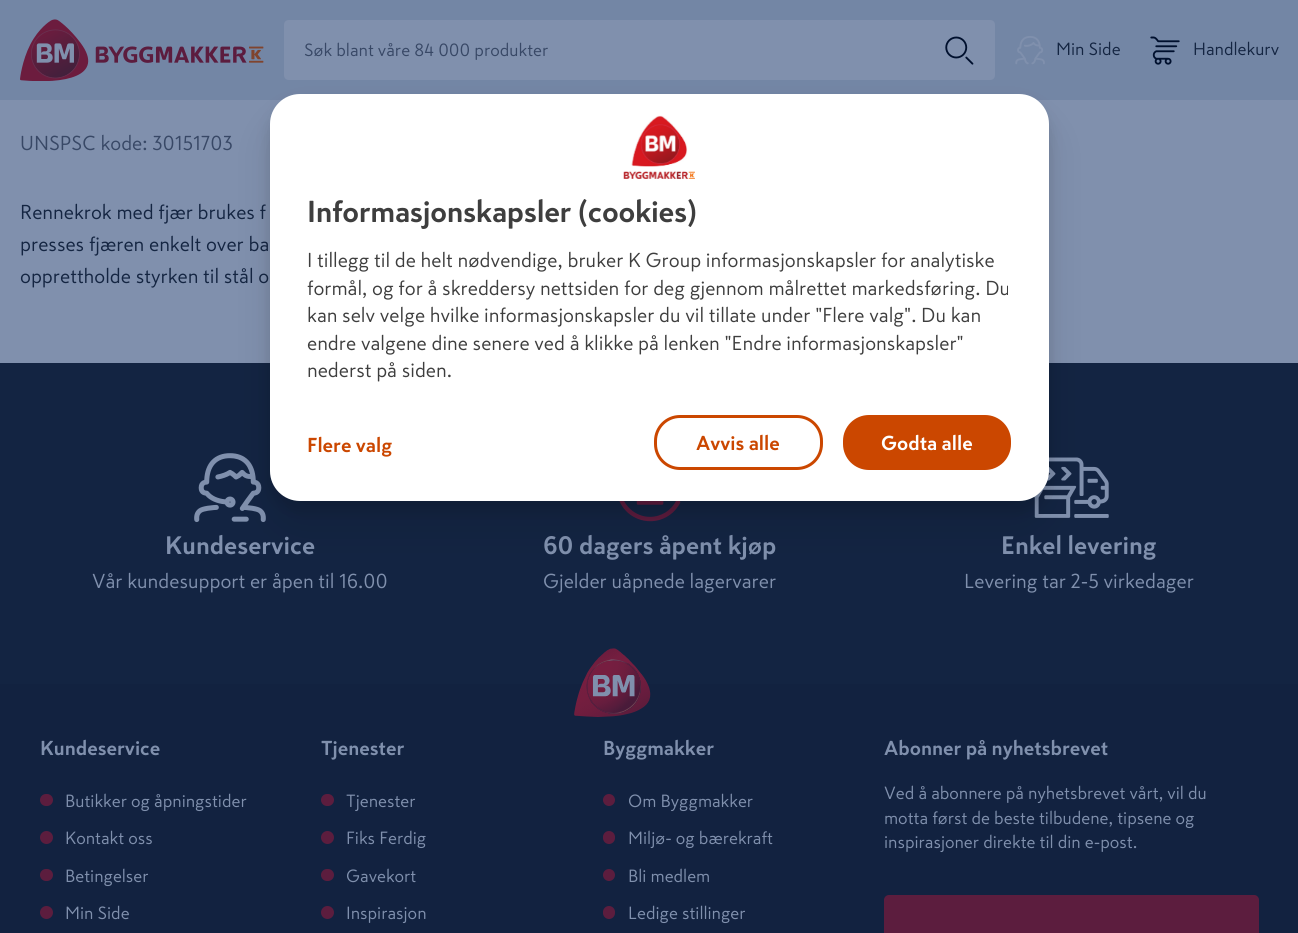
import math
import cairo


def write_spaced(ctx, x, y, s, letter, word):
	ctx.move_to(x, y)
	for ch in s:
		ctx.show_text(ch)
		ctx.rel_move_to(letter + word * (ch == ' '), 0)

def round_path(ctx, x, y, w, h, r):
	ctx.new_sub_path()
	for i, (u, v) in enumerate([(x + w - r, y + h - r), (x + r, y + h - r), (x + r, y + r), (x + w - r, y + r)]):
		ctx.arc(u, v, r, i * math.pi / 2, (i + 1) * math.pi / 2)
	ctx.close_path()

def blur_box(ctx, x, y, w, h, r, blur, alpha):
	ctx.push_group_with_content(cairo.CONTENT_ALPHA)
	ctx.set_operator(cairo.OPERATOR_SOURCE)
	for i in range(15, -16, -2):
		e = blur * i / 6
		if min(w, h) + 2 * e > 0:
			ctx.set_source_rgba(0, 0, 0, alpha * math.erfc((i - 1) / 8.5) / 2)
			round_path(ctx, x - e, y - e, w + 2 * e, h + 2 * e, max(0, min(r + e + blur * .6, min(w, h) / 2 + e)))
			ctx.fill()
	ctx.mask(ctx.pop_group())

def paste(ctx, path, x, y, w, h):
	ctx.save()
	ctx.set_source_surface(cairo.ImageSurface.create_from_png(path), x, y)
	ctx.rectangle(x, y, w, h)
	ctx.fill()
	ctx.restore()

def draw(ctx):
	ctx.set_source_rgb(0.502, 0.565, 0.678)
	ctx.paint()
	ctx.set_source_rgb(0.451, 0.525, 0.647)
	ctx.rectangle(0, 0, 1298, 100)
	ctx.fill()
	paste(ctx, 'media/1.png', 20, 19, 244, 62)
	ctx.set_source_rgb(0.502, 0.565, 0.678)
	ctx.new_path()
	ctx.move_to(289, 20)
	ctx.line_to(924, 20)
	ctx.line_to(924, 80)
	ctx.line_to(289, 80)
	ctx.curve_to(286, 80, 284, 78, 284, 75)
	ctx.line_to(284, 25)
	ctx.curve_to(284, 22, 286, 20, 289, 20)
	ctx.close_path()
	ctx.fill()
	ctx.select_font_face('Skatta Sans')
	ctx.set_font_size(17.5)
	ctx.set_source_rgb(0.22, 0.282, 0.4)
	ctx.move_to(304, 56)
	ctx.show_text('Søk blant våre 84 000 produkter')
	ctx.set_source_rgb(0.502, 0.565, 0.678)
	ctx.new_path()
	ctx.move_to(924, 20)
	ctx.line_to(990, 20)
	ctx.curve_to(993, 20, 995, 22, 995, 25)
	ctx.line_to(995, 75)
	ctx.curve_to(995, 78, 993, 80, 990, 80)
	ctx.line_to(924, 80)
	ctx.close_path()
	ctx.fill()
	paste(ctx, 'media/2.png', 945, 36, 29, 29)
	paste(ctx, 'media/3.png', 1015, 36, 30, 29)
	ctx.set_source_rgb(0.082, 0.145, 0.259)
	ctx.move_to(1056, 55)
	ctx.show_text('Min Side')
	paste(ctx, 'media/4.png', 1150, 36, 30, 29)
	ctx.move_to(1193, 55)
	ctx.show_text('Handlekurv')
	ctx.set_font_size(20)
	ctx.set_source_rgb(0.22, 0.282, 0.4)
	ctx.move_to(20, 150)
	ctx.show_text('UNSPSC kode: 30151703')
	ctx.set_source_rgb(0.082, 0.145, 0.259)
	for x, y, s in [
		(20, 219, 'Rennekrok med fjær brukes f'),
		(20, 251, 'presses fjæren enkelt over ba'),
		(20, 283, 'opprettholde styrken til stål o'),
	]:
		ctx.move_to(x, y)
		ctx.show_text(s)
	ctx.set_source_rgb(0.078, 0.141, 0.259)
	ctx.rectangle(0, 363, 1298, 321)
	ctx.fill()
	paste(ctx, 'media/5.png', 194, 453, 72, 70)
	ctx.select_font_face('Skatta Sans', cairo.FONT_SLANT_NORMAL, cairo.FONT_WEIGHT_BOLD)
	ctx.set_font_size(25)
	ctx.set_source_rgb(0.502, 0.565, 0.678)
	ctx.move_to(165, 554)
	ctx.show_text('Kundeservice')
	ctx.select_font_face('Skatta Sans')
	ctx.set_font_size(20)
	ctx.move_to(92, 588)
	ctx.show_text('Vår kundesupport er åpen til 16.00')
	paste(ctx, 'media/6.png', 619, 501, 62, 21)
	ctx.select_font_face('Skatta Sans', cairo.FONT_SLANT_NORMAL, cairo.FONT_WEIGHT_BOLD)
	ctx.set_font_size(25)
	ctx.move_to(543, 554)
	ctx.show_text('60 dagers åpent kjøp')
	ctx.select_font_face('Skatta Sans')
	ctx.set_font_size(20)
	ctx.move_to(543, 588)
	ctx.show_text('Gjelder uåpnede lagervarer')
	paste(ctx, 'media/7.png', 1034, 457, 75, 61)
	ctx.select_font_face('Skatta Sans', cairo.FONT_SLANT_NORMAL, cairo.FONT_WEIGHT_BOLD)
	ctx.set_font_size(25)
	ctx.move_to(1001, 554)
	ctx.show_text('Enkel levering')
	ctx.select_font_face('Skatta Sans')
	ctx.set_font_size(20)
	ctx.move_to(964, 588)
	ctx.show_text('Levering tar 2-5 virkedager')
	ctx.set_source_rgb(0.071, 0.133, 0.251)
	ctx.rectangle(0, 684, 1298, 249)
	ctx.fill()
	paste(ctx, 'media/8.png', 574, 648, 77, 69)
	ctx.select_font_face('Skatta Sans', cairo.FONT_SLANT_NORMAL, cairo.FONT_WEIGHT_BOLD)
	ctx.set_source_rgb(0.502, 0.565, 0.678)
	ctx.move_to(40, 755)
	ctx.show_text('Kundeservice')
	ctx.set_source_rgb(0.361, 0.114, 0.243)
	round_path(ctx, 40, 794, 13, 12, 6)
	ctx.fill()
	ctx.select_font_face('Skatta Sans')
	ctx.set_font_size(17.5)
	ctx.set_source_rgb(0.502, 0.565, 0.678)
	ctx.move_to(65, 807)
	ctx.show_text('Butikker og åpningstider')
	ctx.set_source_rgb(0.361, 0.114, 0.243)
	ctx.new_path()
	ctx.arc(46.5, 837.5, 6.5, 0, 2 * math.pi)
	ctx.fill()
	ctx.set_source_rgb(0.502, 0.565, 0.678)
	ctx.move_to(65, 844)
	ctx.show_text('Kontakt oss')
	ctx.set_source_rgb(0.361, 0.114, 0.243)
	round_path(ctx, 40, 869, 13, 12, 6)
	ctx.fill()
	ctx.set_source_rgb(0.502, 0.565, 0.678)
	ctx.move_to(65, 882)
	ctx.show_text('Betingelser')
	ctx.set_source_rgb(0.361, 0.114, 0.243)
	ctx.new_path()
	ctx.arc(46.5, 912.5, 6.5, 0, 2 * math.pi)
	ctx.fill()
	ctx.set_source_rgb(0.502, 0.565, 0.678)
	ctx.move_to(65, 919)
	ctx.show_text('Min Side')
	ctx.select_font_face('Skatta Sans', cairo.FONT_SLANT_NORMAL, cairo.FONT_WEIGHT_BOLD)
	ctx.set_font_size(20)
	ctx.move_to(321, 755)
	ctx.show_text('Tjenester')
	ctx.set_source_rgb(0.361, 0.114, 0.243)
	round_path(ctx, 321, 794, 13, 12, 6)
	ctx.fill()
	ctx.select_font_face('Skatta Sans')
	ctx.set_font_size(17.5)
	ctx.set_source_rgb(0.502, 0.565, 0.678)
	ctx.move_to(346, 807)
	ctx.show_text('Tjenester')
	ctx.set_source_rgb(0.361, 0.114, 0.243)
	ctx.new_path()
	ctx.arc(327.5, 837.5, 6.5, 0, 2 * math.pi)
	ctx.fill()
	ctx.set_source_rgb(0.502, 0.565, 0.678)
	ctx.move_to(346, 844)
	ctx.show_text('Fiks Ferdig')
	ctx.set_source_rgb(0.361, 0.114, 0.243)
	round_path(ctx, 321, 869, 13, 12, 6)
	ctx.fill()
	ctx.set_source_rgb(0.502, 0.565, 0.678)
	ctx.move_to(346, 882)
	ctx.show_text('Gavekort')
	ctx.set_source_rgb(0.361, 0.114, 0.243)
	ctx.new_path()
	ctx.arc(327.5, 912.5, 6.5, 0, 2 * math.pi)
	ctx.fill()
	ctx.set_source_rgb(0.502, 0.565, 0.678)
	ctx.move_to(346, 919)
	ctx.show_text('Inspirasjon')
	ctx.select_font_face('Skatta Sans', cairo.FONT_SLANT_NORMAL, cairo.FONT_WEIGHT_BOLD)
	ctx.set_font_size(20)
	ctx.move_to(603, 755)
	ctx.show_text('Byggmakker')
	ctx.set_source_rgb(0.361, 0.114, 0.243)
	ctx.new_path()
	ctx.arc(609, 800, 6, 0, 2 * math.pi)
	ctx.fill()
	ctx.select_font_face('Skatta Sans')
	ctx.set_font_size(17.5)
	ctx.set_source_rgb(0.502, 0.565, 0.678)
	ctx.move_to(628, 807)
	ctx.show_text('Om Byggmakker')
	ctx.set_source_rgb(0.361, 0.114, 0.243)
	round_path(ctx, 603, 831, 12, 13, 6)
	ctx.fill()
	ctx.set_source_rgb(0.502, 0.565, 0.678)
	ctx.move_to(628, 844)
	ctx.show_text('Miljø- og bærekraft')
	ctx.set_source_rgb(0.361, 0.114, 0.243)
	ctx.new_path()
	ctx.arc(609, 875, 6, 0, 2 * math.pi)
	ctx.fill()
	ctx.set_source_rgb(0.502, 0.565, 0.678)
	ctx.move_to(628, 882)
	ctx.show_text('Bli medlem')
	ctx.set_source_rgb(0.361, 0.114, 0.243)
	round_path(ctx, 603, 906, 12, 13, 6)
	ctx.fill()
	ctx.set_source_rgb(0.502, 0.565, 0.678)
	ctx.move_to(628, 919)
	ctx.show_text('Ledige stillinger')
	ctx.select_font_face('Skatta Sans', cairo.FONT_SLANT_NORMAL, cairo.FONT_WEIGHT_BOLD)
	ctx.set_font_size(20)
	ctx.move_to(884, 755)
	ctx.show_text('Abonner på nyhetsbrevet')
	ctx.select_font_face('Skatta Sans')
	ctx.set_font_size(17.5)
	for x, y, s in [
		(884, 799, 'Ved å abonnere på nyhetsbrevet vårt, vil du'),
		(884, 824, 'motta først de beste tilbudene, tipsene og'),
		(884, 848, 'inspirasjoner direkte til din e-post.'),
	]:
		ctx.move_to(x, y)
		ctx.show_text(s)
	ctx.set_source_rgb(0.361, 0.114, 0.243)
	round_path(ctx, 884, 895, 375, 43, 5)
	ctx.fill()
	ctx.set_source_rgb(0, 0, 0)
	blur_box(ctx, 268, 116, 783, 413, 33, 20, 0.08)
	blur_box(ctx, 270, 104, 779, 407, 30, 7.5, 0.12)
	ctx.set_source_rgb(1, 1, 1)
	round_path(ctx, 270, 94, 779, 407, 30)
	ctx.fill()
	paste(ctx, 'media/9.png', 623, 115, 72, 64)
	ctx.select_font_face('Skatta Sans', cairo.FONT_SLANT_NORMAL, cairo.FONT_WEIGHT_BOLD)
	ctx.set_font_size(30)
	ctx.set_source_rgb(0.243, 0.243, 0.243)
	write_spaced(ctx, 307, 222, 'Informasjonskapsler (cookies)', -0.3, 0)
	ctx.select_font_face('Skatta Sans')
	ctx.set_font_size(20)
	for x, y, s in [
		(307, 267, 'I tillegg til de helt nødvendige, bruker K Group informasjonskapsler for analytiske'),
		(307, 295, 'formål, og for å skreddersy nettsiden for deg gjennom målrettet markedsføring. Du'),
		(307, 322, 'kan selv velge hvilke informasjonskapsler du vil tillate under "Flere valg". Du kan'),
		(307, 350, 'endre valgene dine senere ved å klikke på lenken "Endre informasjonskapsler"'),
		(307, 377, 'nederst på siden.'),
	]:
		ctx.move_to(x, y)
		ctx.show_text(s)
	ctx.select_font_face('Skatta Sans', cairo.FONT_SLANT_NORMAL, cairo.FONT_WEIGHT_BOLD)
	ctx.set_source_rgb(0.796, 0.278, 0)
	ctx.move_to(307, 452)
	ctx.show_text('Flere valg')
	round_path(ctx, 655.5, 416.5, 166, 52, 24.5)
	ctx.set_line_width(3)
	ctx.stroke()
	ctx.move_to(696, 450)
	ctx.show_text('Avvis alle')
	round_path(ctx, 844.5, 416.5, 165, 52, 24.5)
	ctx.fill_preserve()
	ctx.stroke()
	ctx.set_source_rgb(1, 1, 1)
	ctx.move_to(881, 450)
	ctx.show_text('Godta alle')


surface = cairo.ImageSurface(cairo.FORMAT_RGB24, 1298, 933)
ctx = cairo.Context(surface)
options = cairo.FontOptions()
options.set_hint_metrics(cairo.HINT_METRICS_OFF)
options.set_hint_style(cairo.HINT_STYLE_NONE)
ctx.set_font_options(options)
ctx.set_miter_limit(4)
draw(ctx)
surface.write_to_png('image.png')
